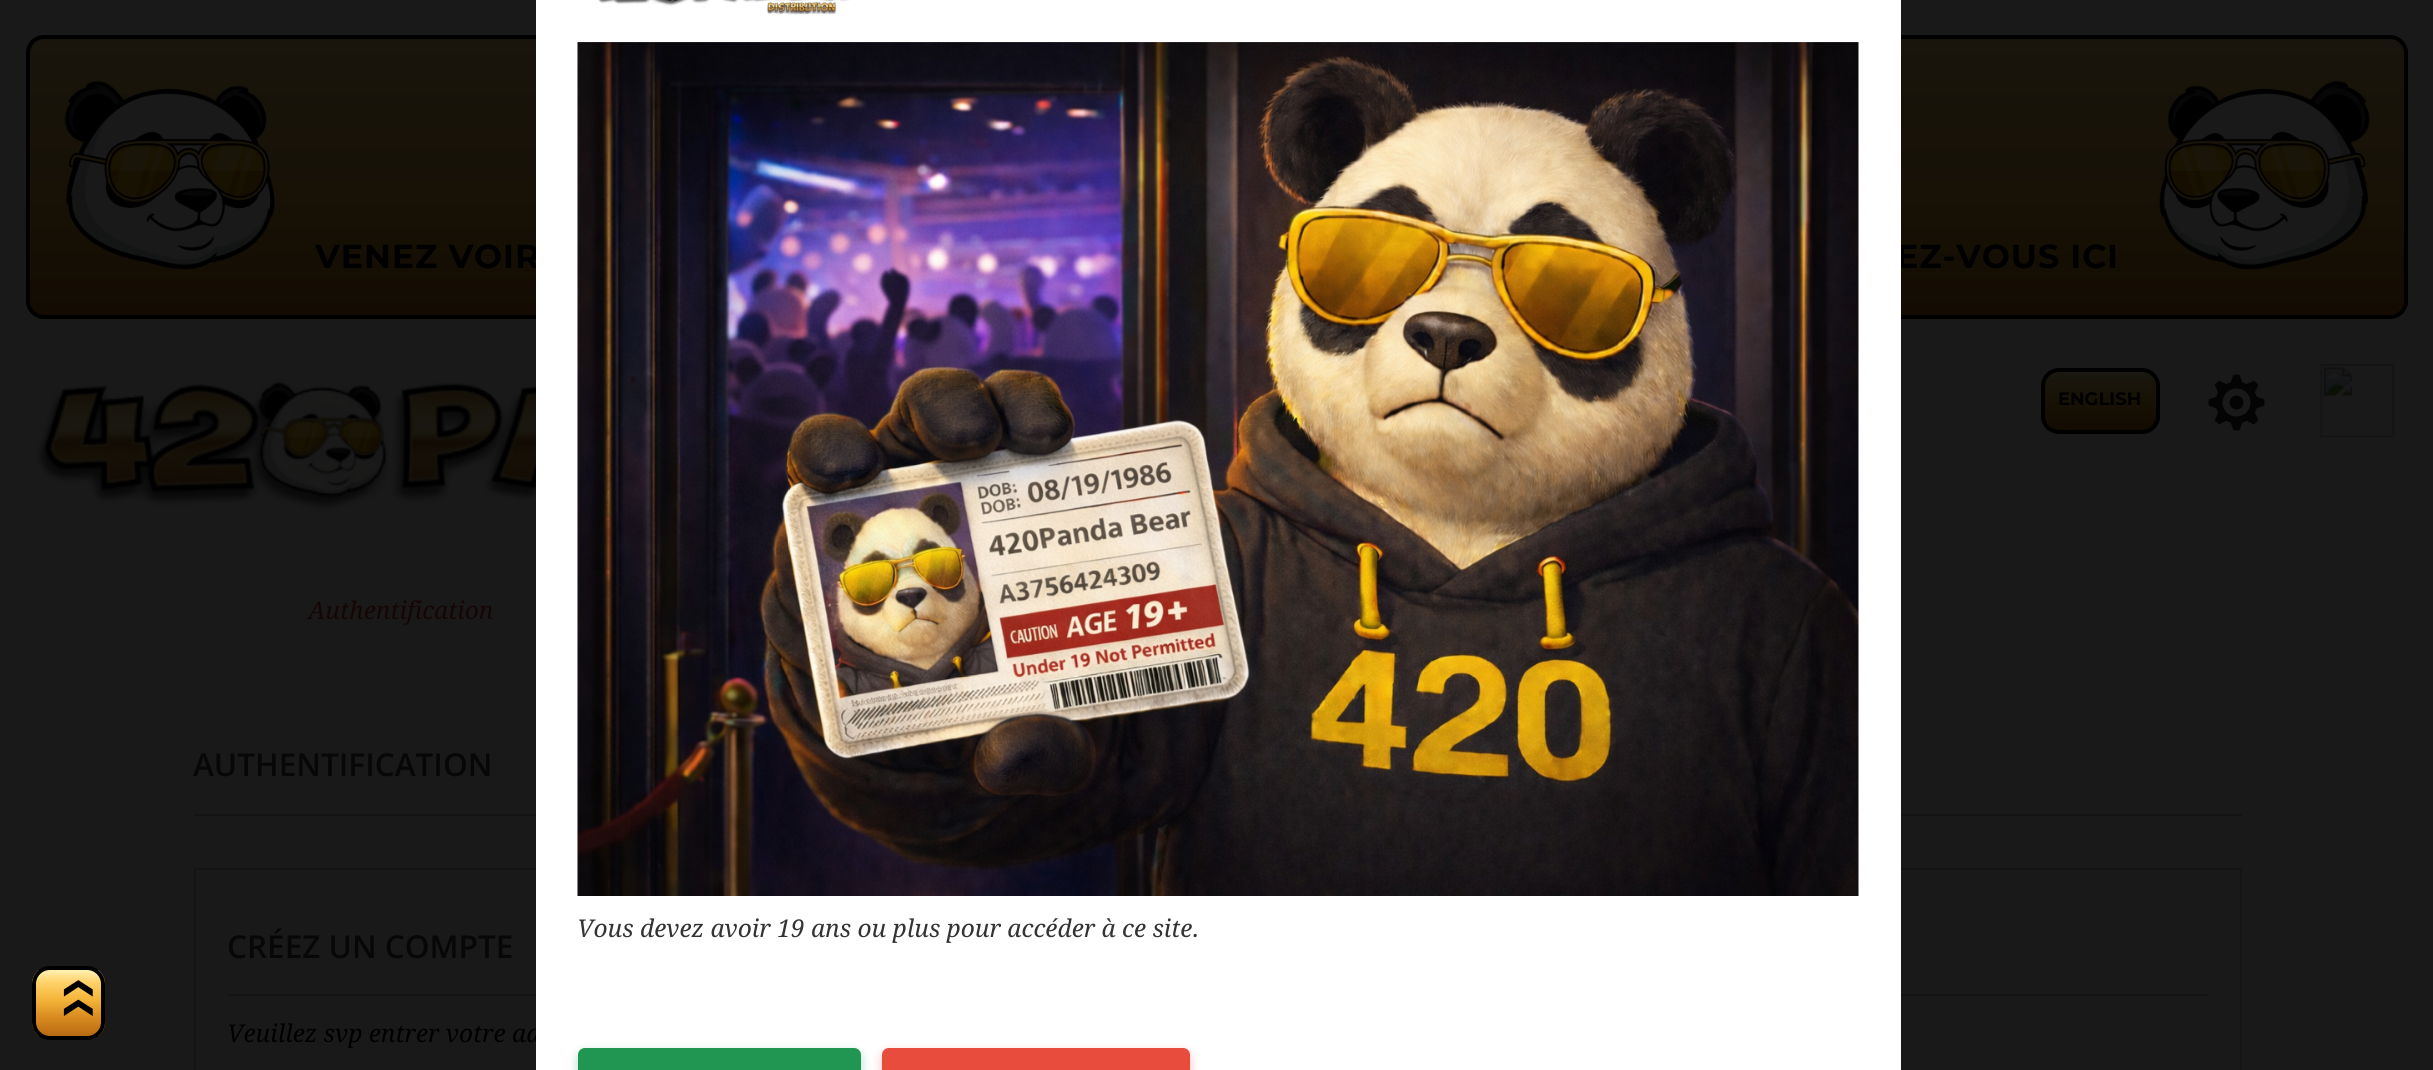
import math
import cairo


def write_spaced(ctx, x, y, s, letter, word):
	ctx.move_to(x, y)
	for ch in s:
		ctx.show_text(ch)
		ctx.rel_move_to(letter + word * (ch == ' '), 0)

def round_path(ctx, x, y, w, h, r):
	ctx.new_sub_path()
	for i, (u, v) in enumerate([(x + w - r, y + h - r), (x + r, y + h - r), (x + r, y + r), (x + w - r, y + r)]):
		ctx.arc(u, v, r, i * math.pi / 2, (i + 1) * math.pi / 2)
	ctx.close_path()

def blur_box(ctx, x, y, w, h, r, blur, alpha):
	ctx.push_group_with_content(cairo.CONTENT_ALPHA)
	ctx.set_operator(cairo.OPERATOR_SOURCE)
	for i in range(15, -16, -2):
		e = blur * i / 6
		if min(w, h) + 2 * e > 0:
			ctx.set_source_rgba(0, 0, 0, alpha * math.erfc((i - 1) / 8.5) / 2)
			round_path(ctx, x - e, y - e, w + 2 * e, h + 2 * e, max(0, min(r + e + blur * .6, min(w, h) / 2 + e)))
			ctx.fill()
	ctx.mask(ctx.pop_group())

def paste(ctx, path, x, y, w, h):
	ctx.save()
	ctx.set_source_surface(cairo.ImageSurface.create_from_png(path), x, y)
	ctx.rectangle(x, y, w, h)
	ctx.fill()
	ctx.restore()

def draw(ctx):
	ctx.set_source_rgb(0.098, 0.098, 0.098)
	ctx.paint()
	ctx.save()
	round_path(ctx, 26, 35, 2382, 284, 18)
	ctx.clip()
	gradient = cairo.LinearGradient(1217, 38, 1217, 315)
	gradient.add_color_stop_rgba(0, 0.098, 0.082, 0.047, 1)
	gradient.add_color_stop_rgba(0.55, 0.09, 0.067, 0.024, 1)
	gradient.add_color_stop_rgba(1, 0.078, 0.047, 0.008, 1)
	ctx.set_source(gradient)
	ctx.rectangle(26, 39, 2382, 276)
	ctx.fill()
	ctx.restore()
	round_path(ctx, 28, 37, 2378, 280, 16)
	ctx.set_source_rgb(0, 0, 0)
	ctx.set_line_width(4)
	ctx.stroke()
	paste(ctx, 'media/1.png', 64, 80, 211, 190)
	ctx.select_font_face('Montserrat', cairo.FONT_SLANT_NORMAL, cairo.FONT_WEIGHT_BOLD)
	ctx.set_font_size(33.25)
	write_spaced(ctx, 315, 268, 'VENEZ VOIR', 0.9, 0)
	write_spaced(ctx, 1896, 268, 'EZ-VOUS ICI', 0.9, 0)
	paste(ctx, 'media/2.png', 2159, 80, 211, 190)
	paste(ctx, 'media/3.png', 35, 379, 501, 136)
	ctx.save()
	round_path(ctx, 2041, 368, 119, 66, 18)
	ctx.clip()
	gradient = cairo.LinearGradient(2100, 371, 2100, 431)
	gradient.add_color_stop_rgba(0, 0.098, 0.094, 0.071, 1)
	gradient.add_color_stop_rgba(0.18, 0.098, 0.082, 0.043, 1)
	gradient.add_color_stop_rgba(0.45, 0.094, 0.071, 0.024, 1)
	gradient.add_color_stop_rgba(0.72, 0.086, 0.055, 0.012, 1)
	gradient.add_color_stop_rgba(1, 0.071, 0.043, 0.008, 1)
	ctx.set_source(gradient)
	ctx.rectangle(2041, 371, 119, 60)
	ctx.fill()
	ctx.restore()
	round_path(ctx, 2043, 370, 115, 62, 16)
	ctx.stroke()
	ctx.set_font_size(18)
	ctx.move_to(2058, 405)
	ctx.show_text('ENGLISH')
	paste(ctx, 'media/4.png', 2208, 374, 57, 57)
	paste(ctx, 'media/5.png', 2320, 364, 75, 74)
	ctx.select_font_face('Droid Serif', cairo.FONT_SLANT_ITALIC)
	ctx.set_font_size(24.5)
	ctx.set_source_rgb(0.086, 0.02, 0.02)
	ctx.move_to(308, 619)
	ctx.show_text('Authentification')
	ctx.set_source_rgb(0.082, 0.082, 0.082)
	ctx.rectangle(194, 814, 2048, 2)
	ctx.fill()
	ctx.select_font_face('Open Sans SemiBold')
	ctx.set_font_size(31.5)
	ctx.set_source_rgb(0.031, 0.031, 0.031)
	ctx.move_to(193, 776)
	ctx.show_text('AUTHENTIFICATION')
	ctx.rectangle(195, 869, 996, 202)
	ctx.set_source_rgb(0.082, 0.082, 0.082)
	ctx.set_line_width(2)
	ctx.stroke()
	ctx.rectangle(228, 994, 308, 2)
	ctx.fill()
	ctx.set_source_rgb(0.031, 0.031, 0.031)
	ctx.move_to(227, 958)
	ctx.show_text('CRÉEZ UN COMPTE')
	ctx.select_font_face('Droid Serif', cairo.FONT_SLANT_ITALIC)
	ctx.set_font_size(24.5)
	ctx.set_source_rgb(0, 0, 0)
	ctx.move_to(227, 1042)
	ctx.show_text('Veuillez svp entrer votre ad')
	ctx.rectangle(1245, 869, 996, 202)
	ctx.set_source_rgb(0.082, 0.082, 0.082)
	ctx.stroke()
	ctx.rectangle(1901, 994, 308, 2)
	ctx.fill()
	ctx.set_source_rgb(1, 1, 1)
	ctx.rectangle(536, 0, 1365, 1070)
	ctx.fill()
	paste(ctx, 'media/6.png', 598, 0, 252, 15)
	paste(ctx, 'media/7.png', 577, 42, 1282, 854)
	ctx.set_source_rgb(0.2, 0.2, 0.2)
	ctx.move_to(577, 937)
	ctx.show_text('Vous devez avoir 19 ans ou plus pour accéder à ce site.')
	ctx.set_source_rgb(0.129, 0.588, 0.325)
	blur_box(ctx, 578, 1052, 283, 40, 7, 5, 0.35)
	ctx.set_source_rgb(0.129, 0.588, 0.325)
	ctx.new_path()
	ctx.move_to(585, 1048)
	ctx.line_to(854, 1048)
	ctx.curve_to(858, 1048, 861, 1051, 861, 1055)
	ctx.line_to(861, 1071)
	ctx.line_to(578, 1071)
	ctx.line_to(578, 1055)
	ctx.curve_to(578, 1051, 581, 1048, 585, 1048)
	ctx.close_path()
	ctx.fill()
	ctx.set_source_rgb(0.906, 0.298, 0.235)
	blur_box(ctx, 882, 1052, 308, 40, 7, 5, 0.35)
	ctx.set_source_rgb(0.906, 0.298, 0.235)
	ctx.new_path()
	ctx.move_to(889, 1048)
	ctx.line_to(1183, 1048)
	ctx.curve_to(1187, 1048, 1190, 1051, 1190, 1055)
	ctx.line_to(1190, 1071)
	ctx.line_to(882, 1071)
	ctx.line_to(882, 1055)
	ctx.curve_to(882, 1051, 885, 1048, 889, 1048)
	ctx.close_path()
	ctx.fill()
	ctx.save()
	round_path(ctx, 32, 966, 73, 74, 18)
	ctx.clip()
	gradient = cairo.LinearGradient(68, 970, 68, 1036)
	gradient.add_color_stop_rgba(0, 1, 0.949, 0.714, 1)
	gradient.add_color_stop_rgba(0.18, 1, 0.824, 0.416, 1)
	gradient.add_color_stop_rgba(0.45, 0.957, 0.706, 0.227, 1)
	gradient.add_color_stop_rgba(0.72, 0.847, 0.541, 0.122, 1)
	gradient.add_color_stop_rgba(1, 0.722, 0.416, 0.071, 1)
	ctx.set_source(gradient)
	ctx.rectangle(32, 970, 73, 66)
	ctx.fill()
	ctx.restore()
	round_path(ctx, 34, 968, 69, 70, 16)
	ctx.set_source_rgb(0, 0, 0)
	ctx.set_line_width(4)
	ctx.stroke()
	ctx.select_font_face('DejaVu Sans', cairo.FONT_SLANT_NORMAL, cairo.FONT_WEIGHT_BOLD)
	ctx.set_font_size(28)
	ctx.save()
	ctx.translate(86, 1020)
	ctx.rotate(-90 * math.pi / 180)
	write_spaced(ctx, 0, 0, '❯❯', -4, 0)
	ctx.restore()


surface = cairo.ImageSurface(cairo.FORMAT_RGB24, 2433, 1070)
ctx = cairo.Context(surface)
options = cairo.FontOptions()
options.set_hint_metrics(cairo.HINT_METRICS_OFF)
options.set_hint_style(cairo.HINT_STYLE_NONE)
ctx.set_font_options(options)
ctx.set_miter_limit(4)
draw(ctx)
surface.write_to_png('image.png')
